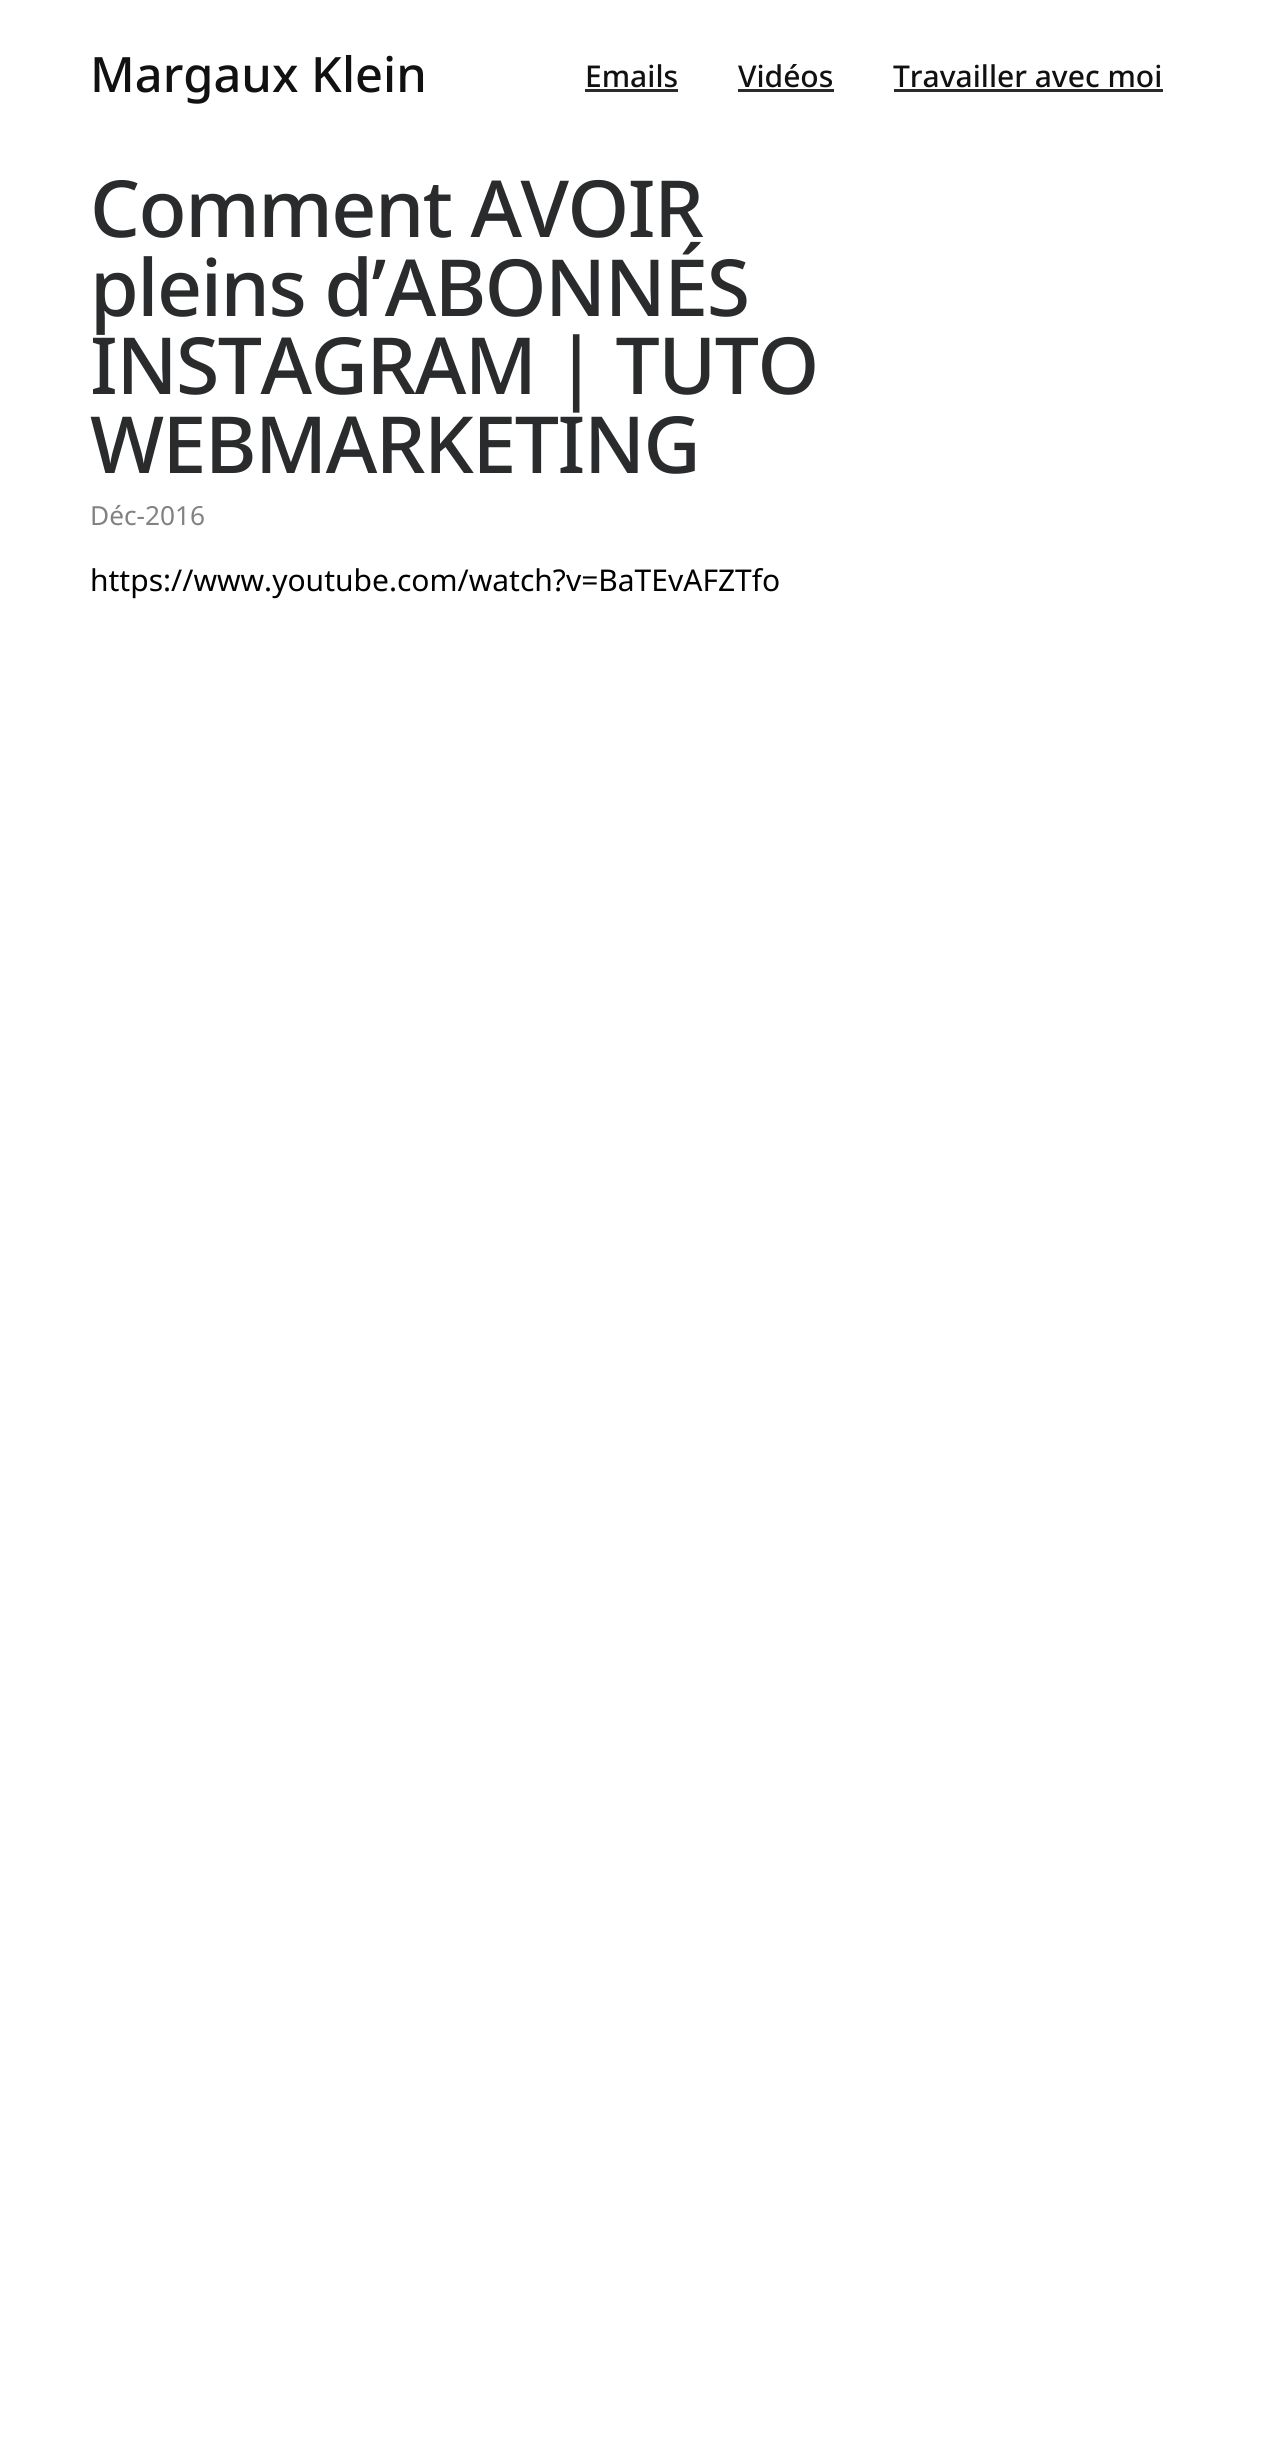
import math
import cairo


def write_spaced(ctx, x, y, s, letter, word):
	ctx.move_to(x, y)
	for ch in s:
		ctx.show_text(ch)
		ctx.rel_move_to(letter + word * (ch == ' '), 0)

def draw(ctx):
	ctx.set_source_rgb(1, 1, 1)
	ctx.paint()
	ctx.select_font_face('Noto Sans Medium')
	ctx.set_font_size(48.75)
	ctx.set_source_rgb(0.067, 0.067, 0.067)
	ctx.move_to(90, 92)
	ctx.show_text('Margaux Klein')
	ctx.set_font_size(30)
	ctx.move_to(585, 87)
	ctx.show_text('Emails')
	ctx.set_source_rgb(0.161, 0.169, 0.173)
	ctx.rectangle(585, 89, 93, 3)
	ctx.fill()
	ctx.set_source_rgb(0.067, 0.067, 0.067)
	ctx.move_to(738, 87)
	ctx.show_text('Vidéos')
	ctx.set_source_rgb(0.161, 0.169, 0.173)
	ctx.rectangle(738, 89, 96, 3)
	ctx.fill()
	ctx.set_source_rgb(0.067, 0.067, 0.067)
	ctx.move_to(893, 87)
	ctx.show_text('Travailler avec moi')
	ctx.set_source_rgb(0.161, 0.169, 0.173)
	ctx.rectangle(894, 89, 269, 3)
	ctx.fill()
	ctx.set_font_size(78.75)
	for x, y, s in [
		(90, 237, 'Comment AVOIR'),
		(90, 316, 'pleins d’ABONNÉS'),
		(90, 394, 'INSTAGRAM | TUTO'),
		(90, 473, 'WEBMARKETING'),
	]:
		write_spaced(ctx, x, y, s, -1.5, 0)
	ctx.select_font_face('Noto Sans')
	ctx.set_font_size(26.25)
	ctx.set_source_rgb(0.51, 0.51, 0.51)
	ctx.move_to(90, 525)
	ctx.show_text('Déc-2016')
	ctx.set_font_size(30)
	ctx.set_source_rgb(0, 0, 0)
	ctx.move_to(90, 591)
	ctx.show_text('https://www.youtube.com/watch?v=BaTEvAFZTfo')


surface = cairo.ImageSurface(cairo.FORMAT_RGB24, 1282, 2452)
ctx = cairo.Context(surface)
options = cairo.FontOptions()
options.set_hint_metrics(cairo.HINT_METRICS_OFF)
options.set_hint_style(cairo.HINT_STYLE_NONE)
ctx.set_font_options(options)
ctx.set_miter_limit(4)
draw(ctx)
surface.write_to_png('image.png')
